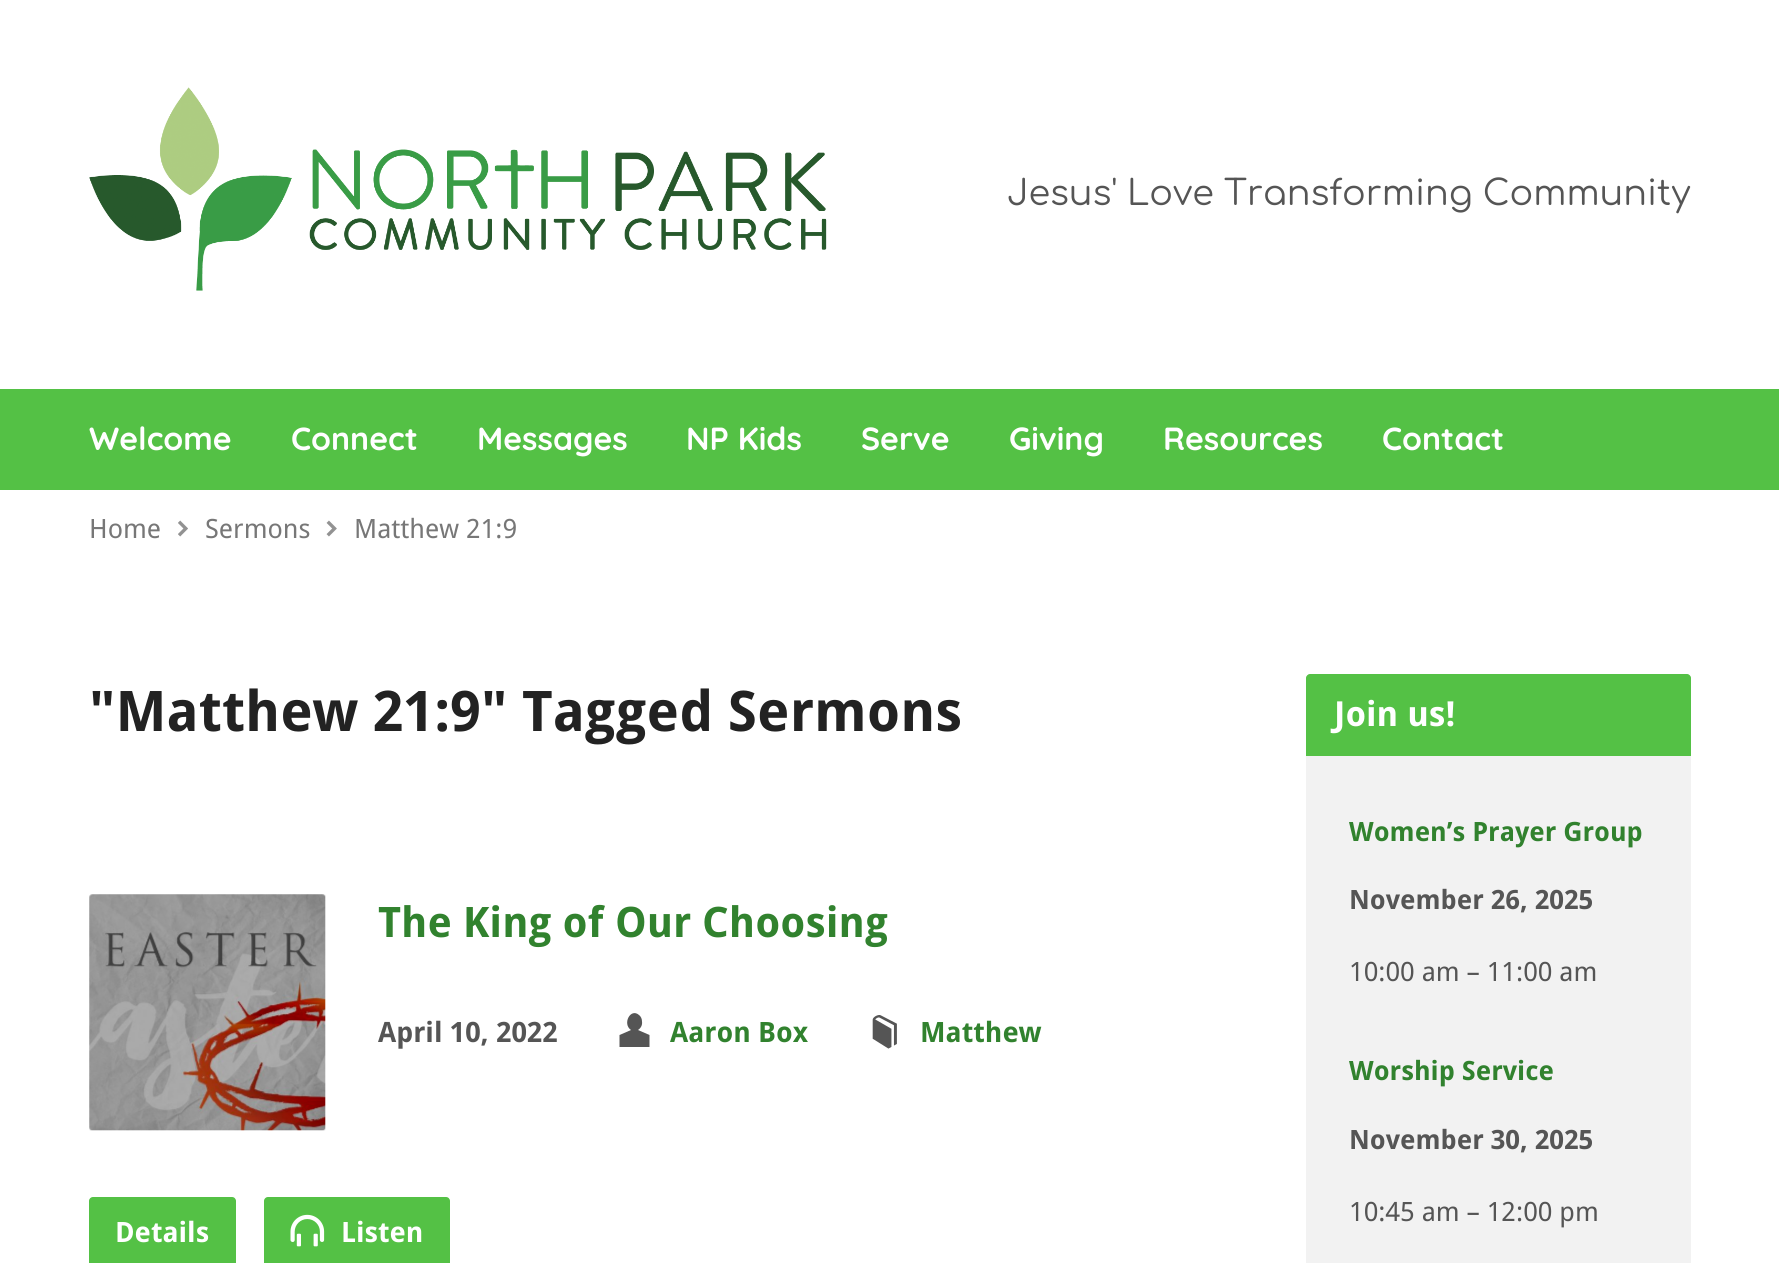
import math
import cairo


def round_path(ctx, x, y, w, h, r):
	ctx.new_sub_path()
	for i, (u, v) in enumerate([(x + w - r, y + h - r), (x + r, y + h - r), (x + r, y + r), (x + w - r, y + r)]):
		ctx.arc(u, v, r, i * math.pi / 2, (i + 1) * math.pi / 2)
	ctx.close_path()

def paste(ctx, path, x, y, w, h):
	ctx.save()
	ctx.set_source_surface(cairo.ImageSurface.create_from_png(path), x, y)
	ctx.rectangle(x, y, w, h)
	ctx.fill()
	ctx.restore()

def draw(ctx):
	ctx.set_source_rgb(1, 1, 1)
	ctx.paint()
	paste(ctx, 'media/1.png', 89, 87, 738, 204)
	ctx.select_font_face('Comfortaa')
	ctx.set_font_size(35)
	ctx.set_source_rgb(0.333, 0.333, 0.333)
	ctx.move_to(1007, 205)
	ctx.show_text('Jesus\' Love Transforming Community')
	ctx.set_source_rgb(0.329, 0.757, 0.271)
	ctx.rectangle(0, 389, 1779, 101)
	ctx.fill()
	ctx.select_font_face('Quicksand', cairo.FONT_SLANT_NORMAL, cairo.FONT_WEIGHT_BOLD)
	ctx.set_font_size(32)
	ctx.set_source_rgb(1, 1, 1)
	for x, y, s in [
		(89, 450, 'Welcome'),
		(291, 450, 'Connect'),
		(477, 450, 'Messages'),
		(686, 450, 'NP Kids'),
		(861, 450, 'Serve'),
		(1009, 450, 'Giving'),
		(1163, 450, 'Resources'),
		(1382, 450, 'Contact'),
	]:
		ctx.move_to(x, y)
		ctx.show_text(s)
	ctx.select_font_face('Droid Sans')
	ctx.set_font_size(26.6)
	ctx.set_source_rgb(0.467, 0.467, 0.467)
	ctx.move_to(89, 538)
	ctx.show_text('Home')
	paste(ctx, 'media/2.png', 178, 520, 10, 17)
	ctx.move_to(205, 538)
	ctx.show_text('Sermons')
	paste(ctx, 'media/3.png', 326, 520, 11, 17)
	ctx.move_to(354, 538)
	ctx.show_text('Matthew 21:9')
	ctx.select_font_face('Droid Sans', cairo.FONT_SLANT_NORMAL, cairo.FONT_WEIGHT_BOLD)
	ctx.set_font_size(56)
	ctx.set_source_rgb(0.133, 0.133, 0.133)
	ctx.move_to(89, 731)
	ctx.show_text('"Matthew 21:9" Tagged Sermons')
	paste(ctx, 'media/4.png', 89, 894, 237, 237)
	ctx.set_font_size(42)
	ctx.set_source_rgb(0.192, 0.51, 0.18)
	ctx.move_to(378, 937)
	ctx.show_text('The King of Our Choosing')
	ctx.set_font_size(28)
	ctx.set_source_rgb(0.333, 0.333, 0.333)
	ctx.move_to(378, 1042)
	ctx.show_text('April 10, 2022')
	ctx.new_path()
	ctx.move_to(649.5, 1035)
	ctx.line_to(649.5, 1047)
	ctx.line_to(619.5, 1047)
	ctx.line_to(619.5, 1035)
	ctx.line_to(631, 1030)
	ctx.curve_to(622, 1024, 630.5, 1007.5, 639, 1015)
	ctx.curve_to(641, 1016.5, 642, 1019, 642, 1021.5)
	ctx.curve_to(642.5, 1025, 641, 1028, 638, 1030)
	ctx.close_path()
	ctx.fill()
	ctx.set_source_rgb(0.192, 0.51, 0.18)
	ctx.move_to(670, 1042)
	ctx.show_text('Aaron Box')
	paste(ctx, 'media/5.png', 872, 1015, 25, 34)
	ctx.move_to(920, 1042)
	ctx.show_text('Matthew')
	ctx.set_source_rgb(0.329, 0.757, 0.271)
	round_path(ctx, 89, 1197, 147, 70, 4)
	ctx.fill()
	ctx.set_source_rgb(1, 1, 1)
	ctx.move_to(115, 1242)
	ctx.show_text('Details')
	ctx.set_source_rgb(0.329, 0.757, 0.271)
	round_path(ctx, 264, 1197, 186, 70, 4)
	ctx.fill()
	paste(ctx, 'media/6.png', 290, 1214, 35, 33)
	ctx.set_source_rgb(1, 1, 1)
	ctx.move_to(341, 1242)
	ctx.show_text('Listen')
	ctx.set_source_rgb(0.949, 0.949, 0.949)
	round_path(ctx, 1306, 674, 385, 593, 4)
	ctx.fill()
	ctx.set_source_rgb(0.329, 0.757, 0.271)
	ctx.new_path()
	ctx.move_to(1310, 674)
	ctx.line_to(1687, 674)
	ctx.curve_to(1689, 674, 1691, 676, 1691, 678)
	ctx.line_to(1691, 756)
	ctx.line_to(1306, 756)
	ctx.line_to(1306, 678)
	ctx.curve_to(1306, 676, 1308, 674, 1310, 674)
	ctx.close_path()
	ctx.fill()
	ctx.set_font_size(34.5)
	ctx.set_source_rgb(1, 1, 1)
	ctx.move_to(1334, 726)
	ctx.show_text('Join us!')
	ctx.set_font_size(26.6)
	ctx.set_source_rgb(0.192, 0.51, 0.18)
	ctx.move_to(1349, 841)
	ctx.show_text('Women’s Prayer Group')
	ctx.set_source_rgb(0.333, 0.333, 0.333)
	ctx.move_to(1349, 909)
	ctx.show_text('November 26, 2025')
	ctx.select_font_face('Droid Sans')
	ctx.move_to(1349, 981)
	ctx.show_text('10:00 am – 11:00 am')
	ctx.select_font_face('Droid Sans', cairo.FONT_SLANT_NORMAL, cairo.FONT_WEIGHT_BOLD)
	ctx.set_source_rgb(0.192, 0.51, 0.18)
	ctx.move_to(1349, 1080)
	ctx.show_text('Worship Service')
	ctx.set_source_rgb(0.333, 0.333, 0.333)
	ctx.move_to(1349, 1149)
	ctx.show_text('November 30, 2025')
	ctx.select_font_face('Droid Sans')
	ctx.move_to(1349, 1221)
	ctx.show_text('10:45 am – 12:00 pm')


surface = cairo.ImageSurface(cairo.FORMAT_RGB24, 1779, 1263)
ctx = cairo.Context(surface)
options = cairo.FontOptions()
options.set_hint_metrics(cairo.HINT_METRICS_OFF)
options.set_hint_style(cairo.HINT_STYLE_NONE)
ctx.set_font_options(options)
ctx.set_miter_limit(4)
draw(ctx)
surface.write_to_png('image.png')
